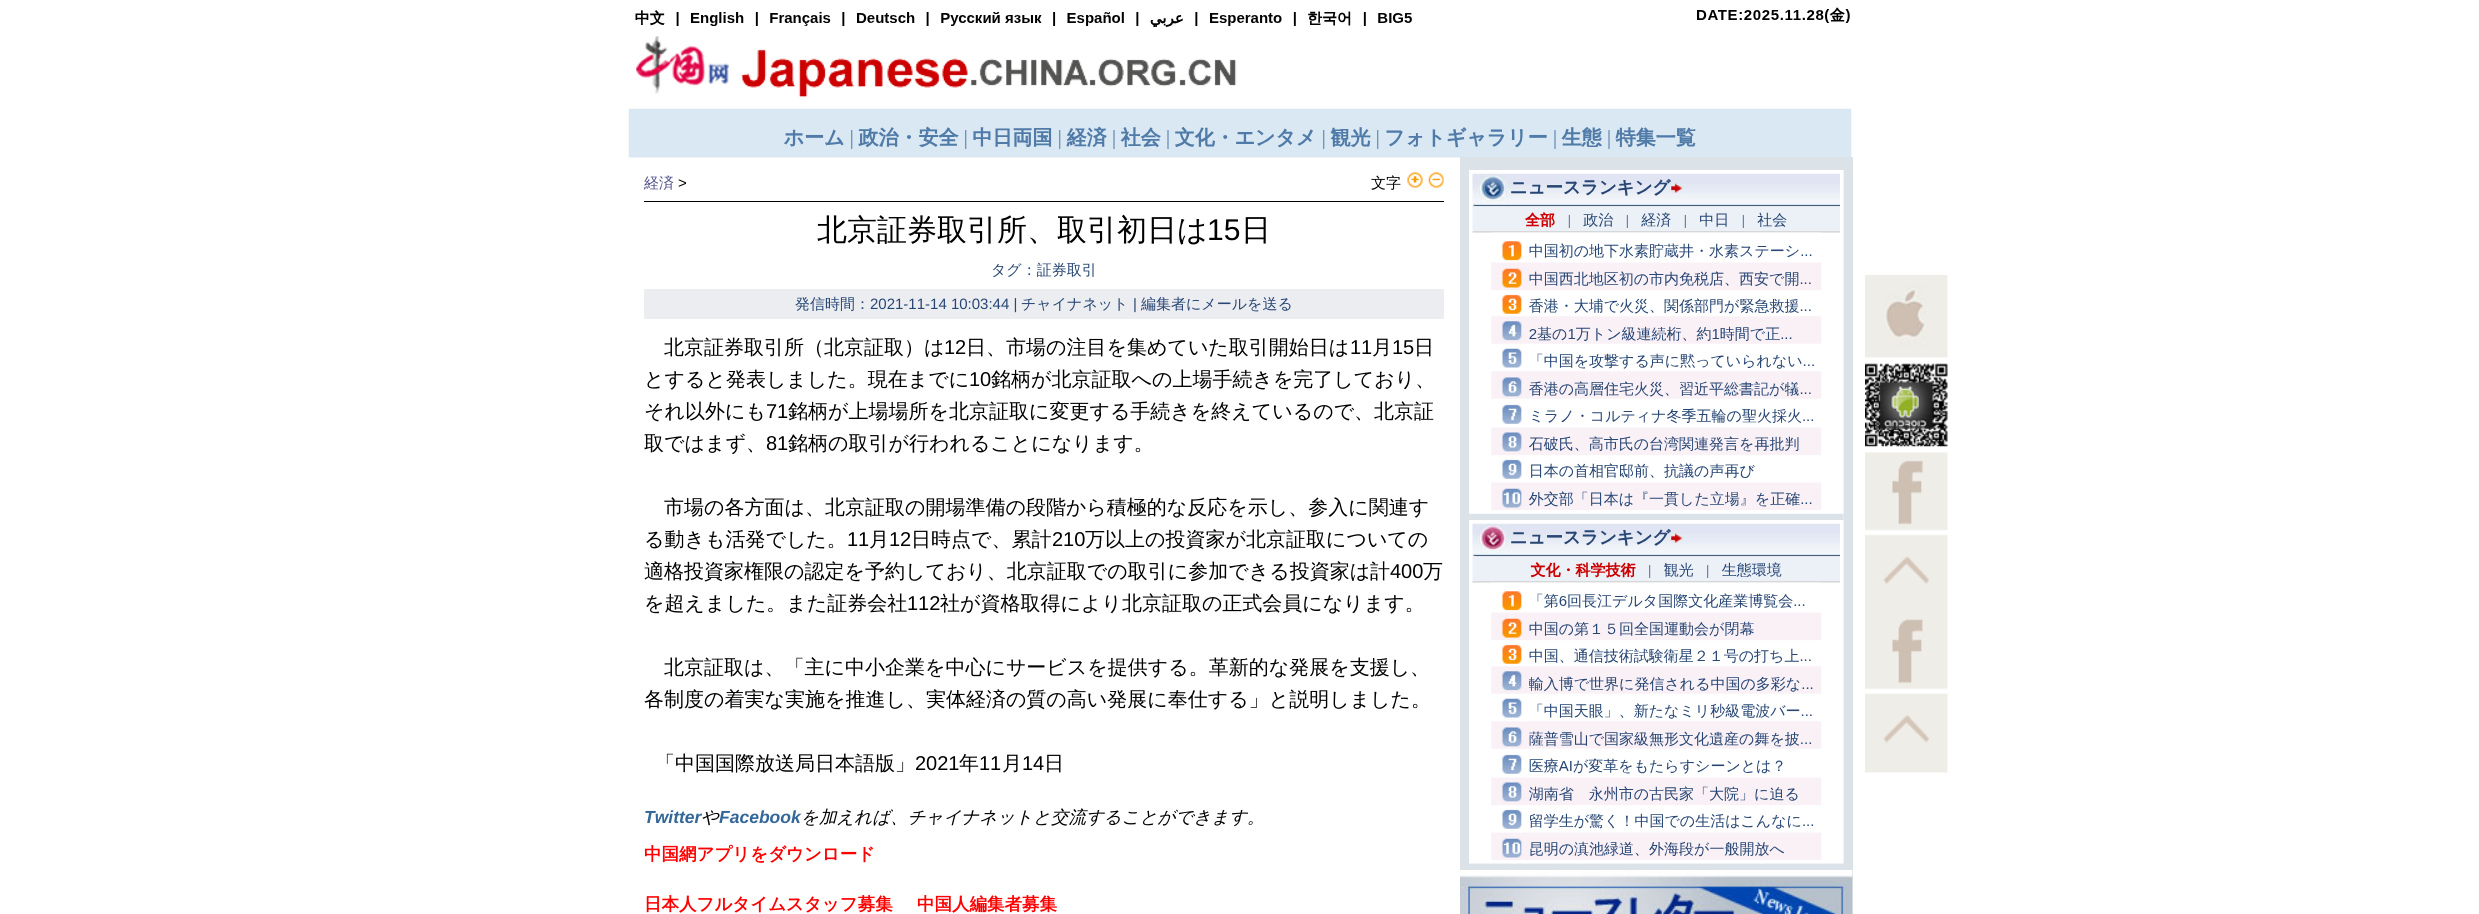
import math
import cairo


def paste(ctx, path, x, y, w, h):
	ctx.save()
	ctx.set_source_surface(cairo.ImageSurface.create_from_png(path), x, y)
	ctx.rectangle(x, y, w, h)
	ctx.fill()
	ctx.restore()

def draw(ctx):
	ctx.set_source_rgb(1, 1, 1)
	ctx.paint()
	paste(ctx, 'media/1.png', 628, 7, 1224, 151)
	ctx.set_source_rgb(0.859, 0.89, 0.91)
	ctx.rectangle(1460, 157, 393, 757)
	ctx.fill()
	ctx.set_source_rgb(0, 0, 0)
	ctx.rectangle(644, 201, 800, 1)
	ctx.fill()
	ctx.select_font_face('WenQuanYi Zen Hei Medium')
	ctx.set_font_size(15)
	ctx.set_source_rgb(0.306, 0.31, 0.533)
	ctx.move_to(644, 188)
	ctx.show_text('経済')
	ctx.select_font_face('Liberation Sans')
	ctx.set_source_rgb(0, 0, 0)
	ctx.move_to(678, 188)
	ctx.show_text('>')
	ctx.select_font_face('WenQuanYi Zen Hei Medium')
	ctx.move_to(1371, 188)
	ctx.show_text('文字')
	paste(ctx, 'media/2.png', 1407, 172, 16, 16)
	paste(ctx, 'media/3.png', 1428, 172, 16, 16)
	ctx.set_font_size(30)
	ctx.move_to(817, 240)
	ctx.show_text('北京証券取引所、取引初日は')
	ctx.select_font_face('Liberation Sans')
	ctx.move_to(1207, 240)
	ctx.show_text('15')
	ctx.select_font_face('WenQuanYi Zen Hei Medium')
	ctx.move_to(1241, 240)
	ctx.show_text('日')
	ctx.set_font_size(15)
	ctx.set_source_rgb(0.149, 0.275, 0.451)
	ctx.move_to(991, 275)
	ctx.show_text('タグ：証券取引')
	ctx.set_source_rgb(0.922, 0.929, 0.945)
	ctx.rectangle(644, 289, 800, 30)
	ctx.fill()
	ctx.set_source_rgb(0.149, 0.275, 0.451)
	ctx.move_to(795, 309)
	ctx.show_text('発信時間：')
	ctx.select_font_face('Liberation Sans')
	ctx.move_to(870, 309)
	ctx.show_text('2021-11-14 10:03:44 |')
	ctx.select_font_face('WenQuanYi Zen Hei Medium')
	ctx.move_to(1021, 309)
	ctx.show_text('チャイナネット')
	ctx.select_font_face('Liberation Sans')
	ctx.move_to(1133, 309)
	ctx.show_text('|')
	ctx.select_font_face('WenQuanYi Zen Hei Medium')
	ctx.move_to(1141, 309)
	ctx.show_text('編集者にメールを送る')
	ctx.set_font_size(20)
	ctx.set_source_rgb(0, 0, 0)
	ctx.move_to(664, 354)
	ctx.show_text('北京証券取引所（北京証取）は')
	ctx.select_font_face('Liberation Sans')
	ctx.move_to(944, 354)
	ctx.show_text('12')
	ctx.select_font_face('WenQuanYi Zen Hei Medium')
	ctx.move_to(966, 354)
	ctx.show_text('日、市場の注目を集めていた取引開始日は')
	ctx.select_font_face('Liberation Sans')
	ctx.move_to(1350, 354)
	ctx.show_text('11')
	ctx.select_font_face('WenQuanYi Zen Hei Medium')
	ctx.move_to(1372, 354)
	ctx.show_text('月')
	ctx.select_font_face('Liberation Sans')
	ctx.move_to(1392, 354)
	ctx.show_text('15')
	ctx.select_font_face('WenQuanYi Zen Hei Medium')
	ctx.move_to(1414, 354)
	ctx.show_text('日')
	ctx.move_to(644, 386)
	ctx.show_text('とすると発表しました。現在までに')
	ctx.select_font_face('Liberation Sans')
	ctx.move_to(969, 386)
	ctx.show_text('10')
	ctx.select_font_face('WenQuanYi Zen Hei Medium')
	ctx.move_to(991, 386)
	ctx.show_text('銘柄が北京証取への上場手続きを完了しており、')
	ctx.move_to(644, 418)
	ctx.show_text('それ以外にも')
	ctx.select_font_face('Liberation Sans')
	ctx.move_to(766, 418)
	ctx.show_text('71')
	ctx.select_font_face('WenQuanYi Zen Hei Medium')
	ctx.move_to(788, 418)
	ctx.show_text('銘柄が上場場所を北京証取に変更する手続きを終えているので、北京証')
	ctx.move_to(644, 450)
	ctx.show_text('取ではまず、')
	ctx.select_font_face('Liberation Sans')
	ctx.move_to(766, 450)
	ctx.show_text('81')
	ctx.select_font_face('WenQuanYi Zen Hei Medium')
	for x, y, s in [
		(788, 450, '銘柄の取引が行われることになります。'),
		(664, 514, '市場の各方面は、北京証取の開場準備の段階から積極的な反応を示し、参入に関連す'),
		(644, 546, 'る動きも活発でした。'),
	]:
		ctx.move_to(x, y)
		ctx.show_text(s)
	ctx.select_font_face('Liberation Sans')
	ctx.move_to(847, 546)
	ctx.show_text('11')
	ctx.select_font_face('WenQuanYi Zen Hei Medium')
	ctx.move_to(869, 546)
	ctx.show_text('月')
	ctx.select_font_face('Liberation Sans')
	ctx.move_to(889, 546)
	ctx.show_text('12')
	ctx.select_font_face('WenQuanYi Zen Hei Medium')
	ctx.move_to(911, 546)
	ctx.show_text('日時点で、累計')
	ctx.select_font_face('Liberation Sans')
	ctx.move_to(1052, 546)
	ctx.show_text('210')
	ctx.select_font_face('WenQuanYi Zen Hei Medium')
	ctx.move_to(1085, 546)
	ctx.show_text('万以上の投資家が北京証取についての')
	ctx.move_to(644, 578)
	ctx.show_text('適格投資家権限の認定を予約しており、北京証取での取引に参加できる投資家は計')
	ctx.select_font_face('Liberation Sans')
	ctx.move_to(1390, 578)
	ctx.show_text('400')
	ctx.select_font_face('WenQuanYi Zen Hei Medium')
	ctx.move_to(1423, 578)
	ctx.show_text('万')
	ctx.move_to(644, 610)
	ctx.show_text('を超えました。また証券会社')
	ctx.select_font_face('Liberation Sans')
	ctx.move_to(907, 610)
	ctx.show_text('112')
	ctx.select_font_face('WenQuanYi Zen Hei Medium')
	for x, y, s in [
		(940, 610, '社が資格取得により北京証取の正式会員になります。'),
		(664, 674, '北京証取は、「主に中小企業を中心にサービスを提供する。革新的な発展を支援し、'),
		(644, 706, '各制度の着実な実施を推進し、実体経済の質の高い発展に奉仕する」と説明しました。'),
		(655, 770, '「中国国際放送局日本語版」'),
	]:
		ctx.move_to(x, y)
		ctx.show_text(s)
	ctx.select_font_face('Liberation Sans')
	ctx.move_to(915, 770)
	ctx.show_text('2021')
	ctx.select_font_face('WenQuanYi Zen Hei Medium')
	ctx.move_to(959, 770)
	ctx.show_text('年')
	ctx.select_font_face('Liberation Sans')
	ctx.move_to(979, 770)
	ctx.show_text('11')
	ctx.select_font_face('WenQuanYi Zen Hei Medium')
	ctx.move_to(1002, 770)
	ctx.show_text('月')
	ctx.select_font_face('Liberation Sans')
	ctx.move_to(1022, 770)
	ctx.show_text('14')
	ctx.select_font_face('WenQuanYi Zen Hei Medium')
	ctx.move_to(1044, 770)
	ctx.show_text('日')
	ctx.select_font_face('Liberation Sans', cairo.FONT_SLANT_ITALIC, cairo.FONT_WEIGHT_BOLD)
	ctx.set_font_size(17.5)
	ctx.set_source_rgb(0.2, 0.4, 0.6)
	ctx.move_to(644, 823)
	ctx.show_text('Twitter')
	ctx.select_font_face('WenQuanYi Zen Hei Medium', cairo.FONT_SLANT_ITALIC)
	ctx.set_source_rgb(0, 0, 0)
	ctx.move_to(701, 823)
	ctx.show_text('や')
	ctx.select_font_face('Liberation Sans', cairo.FONT_SLANT_ITALIC, cairo.FONT_WEIGHT_BOLD)
	ctx.set_source_rgb(0.2, 0.4, 0.6)
	ctx.move_to(719, 823)
	ctx.show_text('Facebook')
	ctx.select_font_face('WenQuanYi Zen Hei Medium', cairo.FONT_SLANT_ITALIC)
	ctx.set_source_rgb(0, 0, 0)
	ctx.move_to(801, 823)
	ctx.show_text('を加えれば、チャイナネットと交流することができます。')
	ctx.select_font_face('WenQuanYi Zen Hei', cairo.FONT_SLANT_NORMAL, cairo.FONT_WEIGHT_BOLD)
	ctx.set_source_rgb(1, 0, 0)
	for x, y, s in [
		(644, 860, '中国網アプリをダウンロード'),
		(644, 910, '日本人フルタイムスタッフ募集'),
		(917, 910, '中国人編集者募集'),
	]:
		ctx.move_to(x, y)
		ctx.show_text(s)
	paste(ctx, 'media/4.png', 1469, 170, 375, 694)
	paste(ctx, 'media/5.png', 1460, 870, 393, 44)
	paste(ctx, 'media/6.png', 1865, 275, 83, 83)
	paste(ctx, 'media/7.png', 1865, 363, 83, 84)
	paste(ctx, 'media/8.png', 1865, 452, 83, 321)


surface = cairo.ImageSurface(cairo.FORMAT_RGB24, 2479, 914)
ctx = cairo.Context(surface)
options = cairo.FontOptions()
options.set_hint_metrics(cairo.HINT_METRICS_OFF)
options.set_hint_style(cairo.HINT_STYLE_NONE)
ctx.set_font_options(options)
ctx.set_miter_limit(4)
draw(ctx)
surface.write_to_png('image.png')
